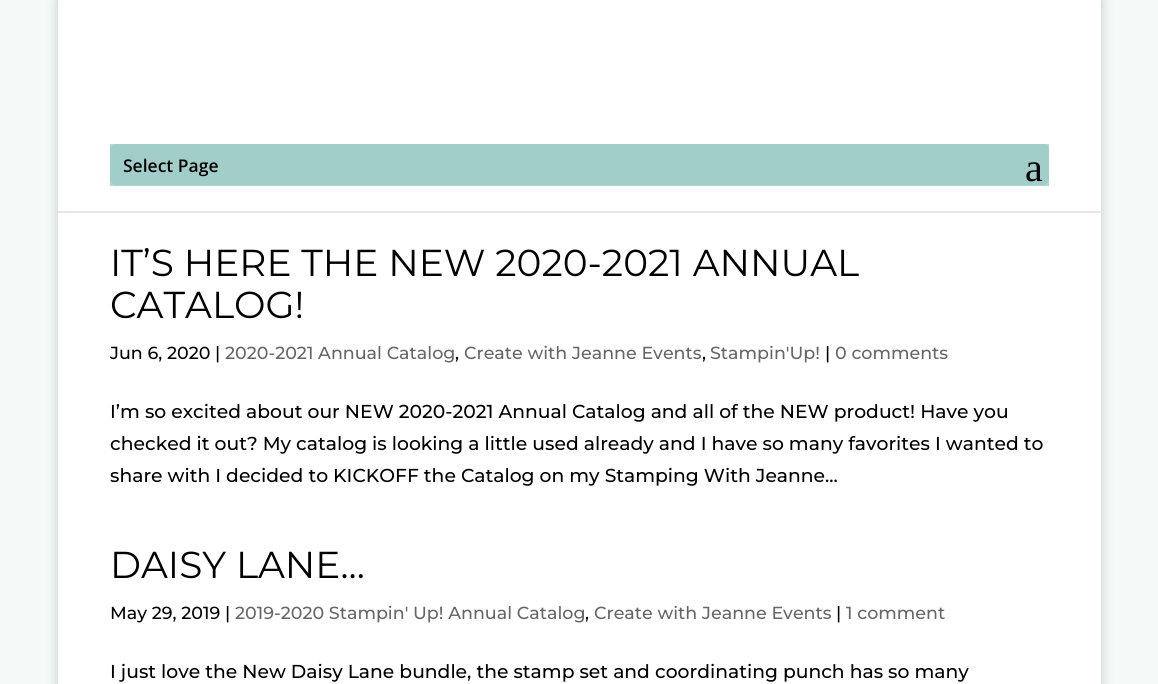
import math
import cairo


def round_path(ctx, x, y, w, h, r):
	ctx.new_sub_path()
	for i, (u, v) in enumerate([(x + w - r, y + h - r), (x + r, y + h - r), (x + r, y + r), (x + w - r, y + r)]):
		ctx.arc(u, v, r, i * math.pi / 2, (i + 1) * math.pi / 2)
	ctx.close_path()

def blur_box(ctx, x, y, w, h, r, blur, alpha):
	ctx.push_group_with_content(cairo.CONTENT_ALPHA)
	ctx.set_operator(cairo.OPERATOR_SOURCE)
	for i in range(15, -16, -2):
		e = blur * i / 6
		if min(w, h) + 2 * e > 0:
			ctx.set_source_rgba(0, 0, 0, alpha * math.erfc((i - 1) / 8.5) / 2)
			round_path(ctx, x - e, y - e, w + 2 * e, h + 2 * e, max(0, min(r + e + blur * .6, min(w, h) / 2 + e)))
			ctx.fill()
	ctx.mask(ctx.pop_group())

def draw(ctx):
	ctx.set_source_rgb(0.953, 0.98, 0.969)
	ctx.paint()
	ctx.set_source_rgb(0, 0, 0)
	blur_box(ctx, 58, 0, 1043, 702, 0, 6, 0.2)
	ctx.set_source_rgb(0.902, 0.902, 0.902)
	ctx.rectangle(58, 211, 1043, 2)
	ctx.fill()
	ctx.set_source_rgb(1, 1, 1)
	ctx.rectangle(58, 0, 1043, 211)
	ctx.fill()
	ctx.set_source_rgb(0.671, 0.851, 0.835)
	ctx.rectangle(110, 144, 939, 42)
	ctx.fill()
	ctx.set_source_rgb(0.635, 0.808, 0.792)
	round_path(ctx, 110, 144, 939, 41, 6)
	ctx.fill()
	ctx.select_font_face('Open Sans SemiBold')
	ctx.set_font_size(17.5)
	ctx.set_source_rgb(0, 0, 0)
	ctx.move_to(123, 172)
	ctx.show_text('Select Page')
	ctx.select_font_face('Liberation Serif')
	ctx.set_font_size(40)
	ctx.move_to(1025, 181)
	ctx.show_text('a')
	ctx.set_source_rgb(1, 1, 1)
	ctx.rectangle(58, 213, 1043, 471)
	ctx.fill()
	ctx.select_font_face('Montserrat Thin')
	ctx.set_font_size(37.5)
	ctx.set_source_rgb(0, 0, 0)
	ctx.move_to(110, 276)
	ctx.show_text('IT’S HERE THE NEW 2020-2021 ANNUAL')
	ctx.move_to(110, 318)
	ctx.show_text('CATALOG!')
	ctx.select_font_face('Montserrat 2 Thin')
	ctx.set_font_size(17.5)
	ctx.move_to(110, 359)
	ctx.show_text('Jun 6, 2020 |')
	ctx.set_source_rgb(0.4, 0.4, 0.4)
	ctx.move_to(225, 359)
	ctx.show_text('2020-2021 Annual Catalog')
	ctx.set_source_rgb(0, 0, 0)
	ctx.move_to(455, 359)
	ctx.show_text(',')
	ctx.set_source_rgb(0.4, 0.4, 0.4)
	ctx.move_to(464, 359)
	ctx.show_text('Create with Jeanne Events')
	ctx.set_source_rgb(0, 0, 0)
	ctx.move_to(702, 359)
	ctx.show_text(',')
	ctx.set_source_rgb(0.4, 0.4, 0.4)
	ctx.move_to(710, 359)
	ctx.show_text('Stampin\'Up!')
	ctx.set_source_rgb(0, 0, 0)
	ctx.move_to(825, 359)
	ctx.show_text('|')
	ctx.set_source_rgb(0.4, 0.4, 0.4)
	ctx.move_to(835, 359)
	ctx.show_text('0 comments')
	ctx.set_font_size(18.75)
	ctx.set_source_rgb(0, 0, 0)
	for x, y, s in [
		(110, 418, 'I’m so excited about our NEW 2020-2021 Annual Catalog and all of the NEW product! Have you'),
		(110, 450, 'checked it out? My catalog is looking a little used already and I have so many favorites I wanted to'),
		(110, 482, 'share with I decided to KICKOFF the Catalog on my Stamping With Jeanne...'),
	]:
		ctx.move_to(x, y)
		ctx.show_text(s)
	ctx.select_font_face('Montserrat Thin')
	ctx.set_font_size(37.5)
	ctx.move_to(110, 578)
	ctx.show_text('DAISY LANE…')
	ctx.select_font_face('Montserrat 2 Thin')
	ctx.set_font_size(17.5)
	ctx.move_to(110, 619)
	ctx.show_text('May 29, 2019 |')
	ctx.set_source_rgb(0.4, 0.4, 0.4)
	ctx.move_to(235, 619)
	ctx.show_text('2019-2020 Stampin\' Up! Annual Catalog')
	ctx.set_source_rgb(0, 0, 0)
	ctx.move_to(585, 619)
	ctx.show_text(',')
	ctx.set_source_rgb(0.4, 0.4, 0.4)
	ctx.move_to(594, 619)
	ctx.show_text('Create with Jeanne Events')
	ctx.set_source_rgb(0, 0, 0)
	ctx.move_to(836, 619)
	ctx.show_text('|')
	ctx.set_source_rgb(0.4, 0.4, 0.4)
	ctx.move_to(846, 619)
	ctx.show_text('1 comment')
	ctx.set_font_size(18.75)
	ctx.set_source_rgb(0, 0, 0)
	ctx.move_to(110, 678)
	ctx.show_text('I just love the New Daisy Lane bundle, the stamp set and coordinating punch has so many')


surface = cairo.ImageSurface(cairo.FORMAT_RGB24, 1158, 684)
ctx = cairo.Context(surface)
options = cairo.FontOptions()
options.set_hint_metrics(cairo.HINT_METRICS_OFF)
options.set_hint_style(cairo.HINT_STYLE_NONE)
ctx.set_font_options(options)
ctx.set_miter_limit(4)
draw(ctx)
surface.write_to_png('image.png')
